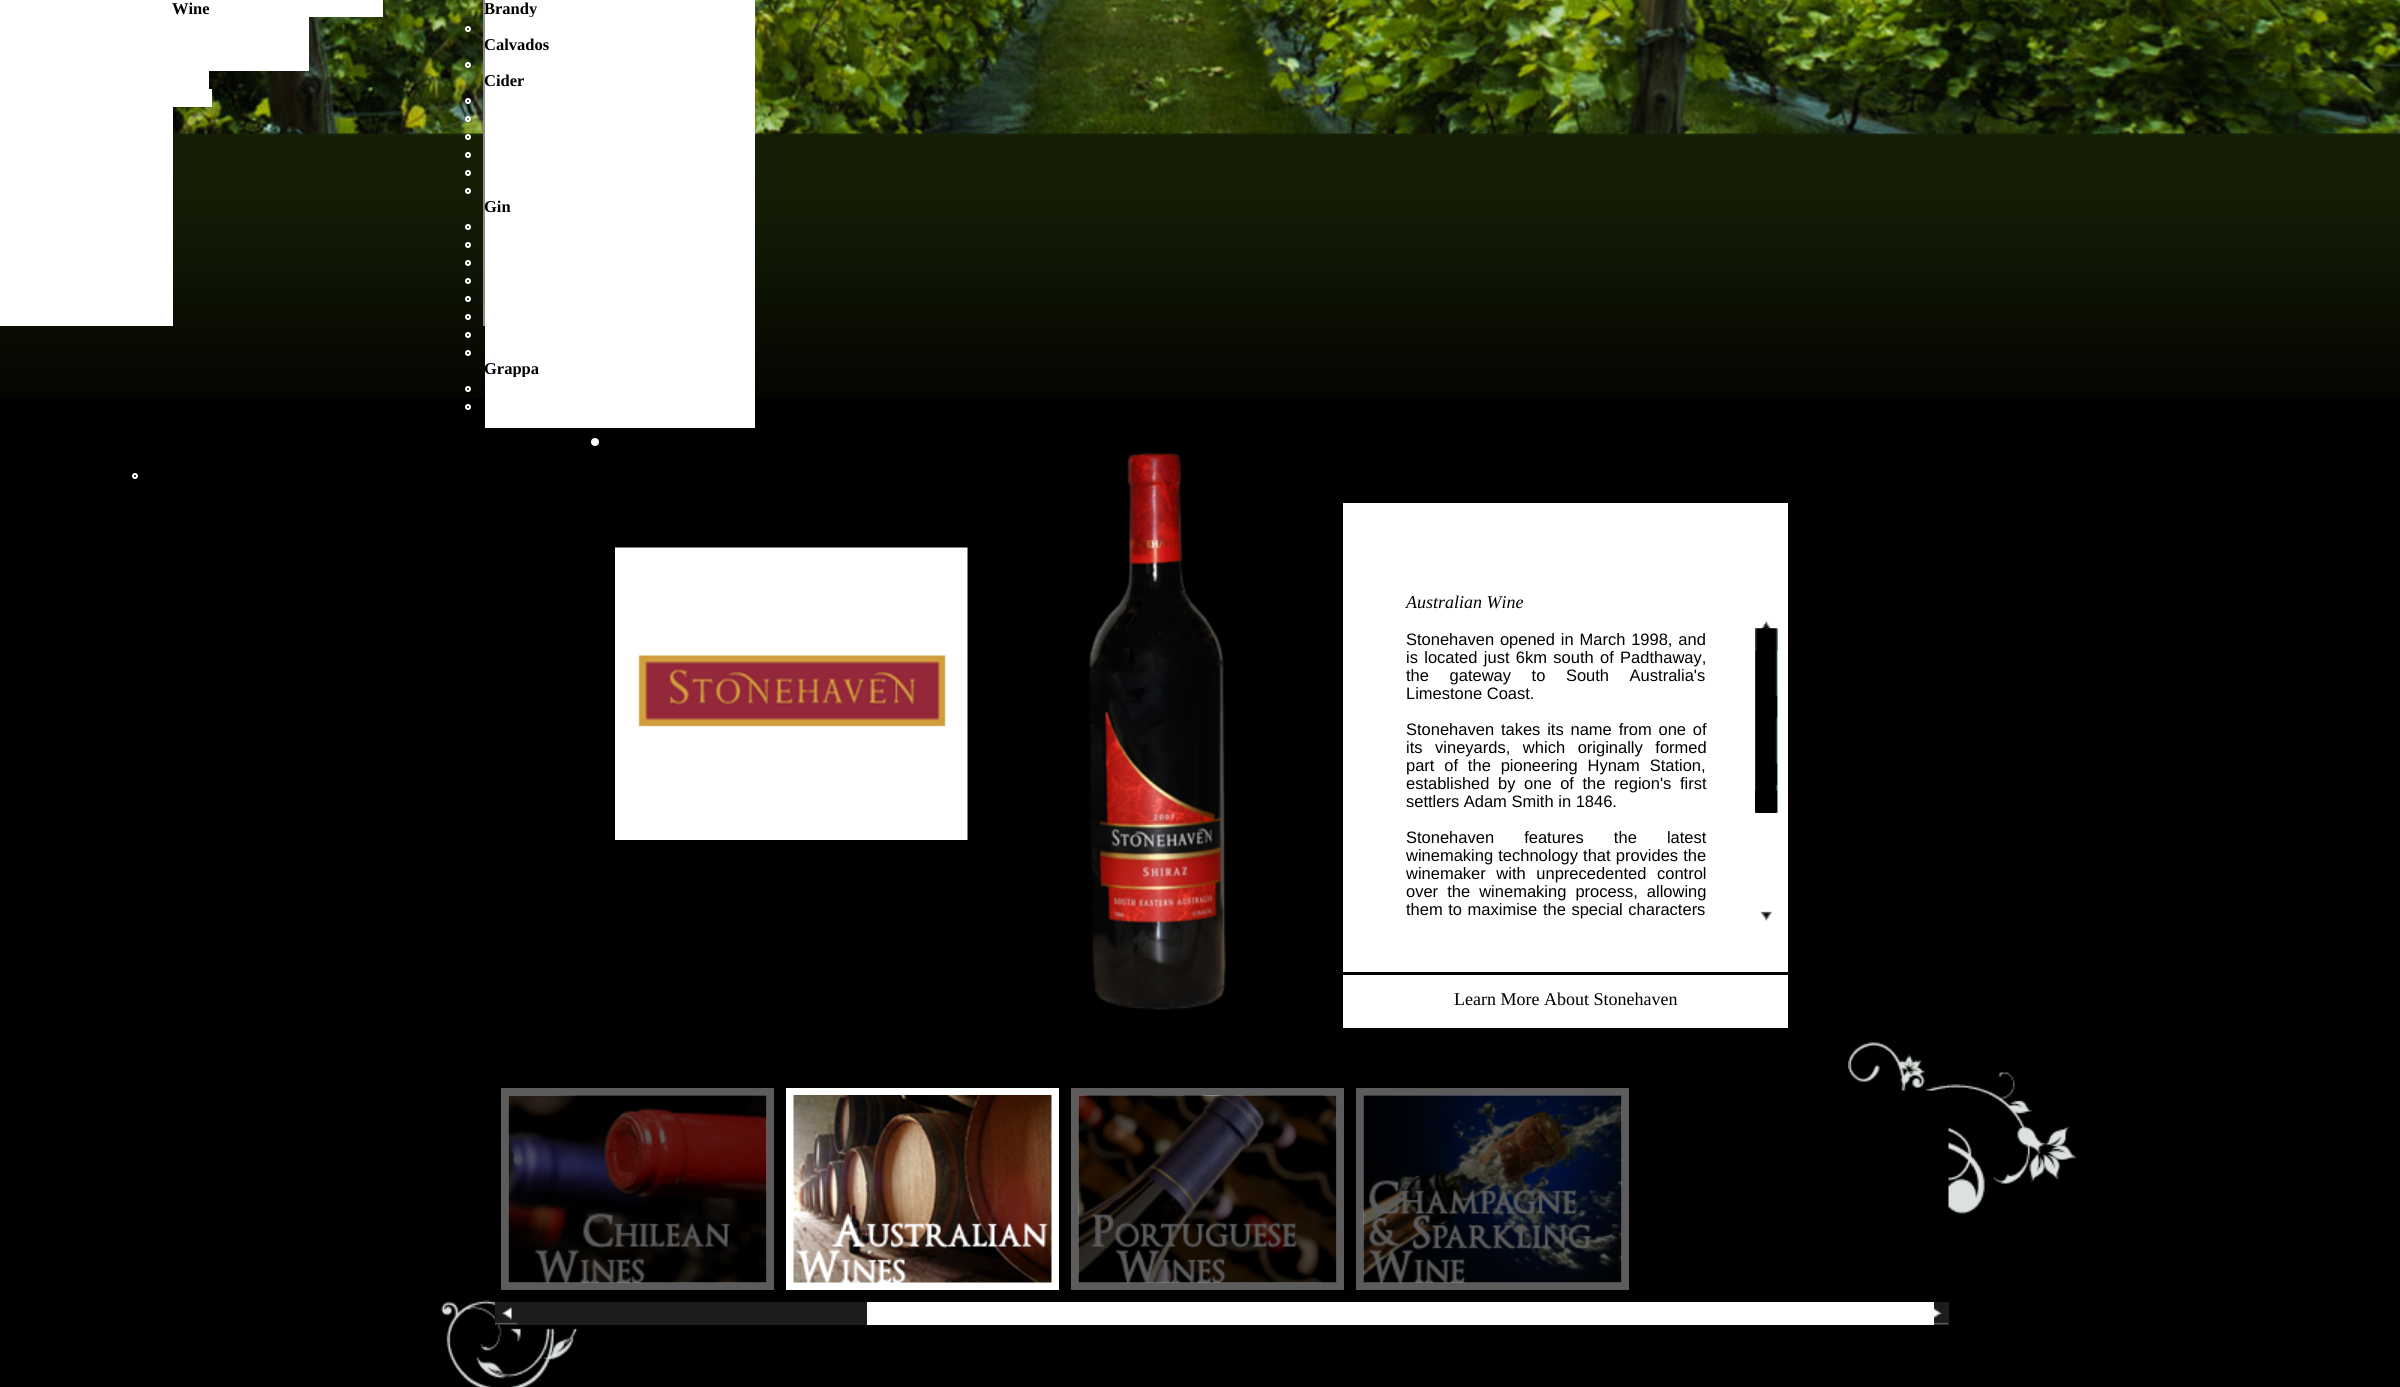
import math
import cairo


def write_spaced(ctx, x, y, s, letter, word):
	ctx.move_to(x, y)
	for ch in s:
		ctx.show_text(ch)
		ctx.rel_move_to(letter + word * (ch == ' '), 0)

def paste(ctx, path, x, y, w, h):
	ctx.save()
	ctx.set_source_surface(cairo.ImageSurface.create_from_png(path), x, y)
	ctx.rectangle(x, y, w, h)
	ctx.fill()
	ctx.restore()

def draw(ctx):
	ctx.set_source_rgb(0, 0, 0)
	ctx.paint()
	paste(ctx, 'media/1.png', 0, 0, 2400, 398)
	ctx.set_source_rgb(1, 1, 1)
	ctx.rectangle(0, 0, 173, 326)
	ctx.fill()
	ctx.set_source_rgb(0.549, 0.549, 0.549)
	ctx.rectangle(483, 0, 2, 326)
	ctx.fill()
	ctx.set_source_rgb(1, 1, 1)
	ctx.rectangle(173, 0, 210, 17)
	ctx.fill()
	ctx.select_font_face('Liberation Serif', cairo.FONT_SLANT_NORMAL, cairo.FONT_WEIGHT_BOLD)
	ctx.set_font_size(16.5)
	ctx.set_source_rgb(0, 0, 0)
	ctx.move_to(172, 14)
	ctx.show_text('Wine')
	ctx.set_source_rgb(1, 1, 1)
	ctx.rectangle(173, 17, 136, 54)
	ctx.rectangle(173, 71, 36, 18)
	ctx.rectangle(173, 89, 39, 18)
	ctx.rectangle(485, 0, 270, 428)
	ctx.fill()
	ctx.set_source_rgb(0, 0, 0)
	ctx.move_to(484, 14)
	ctx.show_text('Brandy')
	ctx.set_source_rgb(1, 1, 1)
	ctx.rectangle(529, 17, 3, 1)
	ctx.fill()
	ctx.arc(468, 29, 2, 0, 2 * math.pi)
	ctx.stroke()
	ctx.set_source_rgb(0, 0, 0)
	ctx.move_to(484, 50)
	ctx.show_text('Calvados')
	ctx.new_path()
	ctx.arc(468, 65, 2, 0, 2 * math.pi)
	ctx.set_source_rgb(1, 1, 1)
	ctx.stroke()
	ctx.set_source_rgb(0, 0, 0)
	ctx.move_to(484, 86)
	ctx.show_text('Cider')
	ctx.new_path()
	ctx.arc(468, 101, 2, 0, 2 * math.pi)
	ctx.set_source_rgb(1, 1, 1)
	ctx.stroke()
	ctx.arc(468, 119, 2, 0, 2 * math.pi)
	ctx.stroke()
	ctx.arc(468, 137, 2, 0, 2 * math.pi)
	ctx.stroke()
	ctx.arc(468, 155, 2, 0, 2 * math.pi)
	ctx.stroke()
	ctx.arc(468, 173, 2, 0, 2 * math.pi)
	ctx.stroke()
	ctx.arc(468, 191, 2, 0, 2 * math.pi)
	ctx.stroke()
	ctx.set_source_rgb(0, 0, 0)
	ctx.move_to(484, 212)
	ctx.show_text('Gin')
	ctx.new_path()
	ctx.arc(468, 227, 2, 0, 2 * math.pi)
	ctx.set_source_rgb(1, 1, 1)
	ctx.stroke()
	ctx.arc(468, 245, 2, 0, 2 * math.pi)
	ctx.stroke()
	ctx.arc(468, 263, 2, 0, 2 * math.pi)
	ctx.stroke()
	ctx.arc(468, 281, 2, 0, 2 * math.pi)
	ctx.stroke()
	ctx.arc(468, 299, 2, 0, 2 * math.pi)
	ctx.stroke()
	ctx.arc(468, 317, 2, 0, 2 * math.pi)
	ctx.stroke()
	ctx.arc(468, 335, 2, 0, 2 * math.pi)
	ctx.stroke()
	ctx.arc(468, 353, 2, 0, 2 * math.pi)
	ctx.stroke()
	ctx.set_source_rgb(0, 0, 0)
	ctx.move_to(484, 374)
	ctx.show_text('Grappa')
	ctx.set_source_rgb(1, 1, 1)
	ctx.rectangle(512, 377, 14, 1)
	ctx.fill()
	ctx.arc(468, 389, 2, 0, 2 * math.pi)
	ctx.stroke()
	ctx.arc(468, 407, 2, 0, 2 * math.pi)
	ctx.stroke()
	ctx.arc(135, 476, 2, 0, 2 * math.pi)
	ctx.stroke()
	ctx.arc(595, 442, 4, 0, 2 * math.pi)
	ctx.fill()
	paste(ctx, 'media/2.png', 615, 547, 353, 293)
	paste(ctx, 'media/3.png', 1089, 452, 137, 558)
	ctx.rectangle(1343, 503, 445, 469)
	ctx.fill()
	ctx.select_font_face('Liberation Serif', cairo.FONT_SLANT_ITALIC)
	ctx.set_font_size(18)
	ctx.set_source_rgb(0, 0, 0)
	ctx.move_to(1406, 608)
	ctx.show_text('Australian Wine')
	ctx.select_font_face('Liberation Sans')
	ctx.set_font_size(16.5)
	write_spaced(ctx, 1406, 645, 'Stonehaven opened in March 1998, and', 0, 1.25)
	write_spaced(ctx, 1406, 663, 'is located just 6km south of Padthaway,', 0, 1.75)
	write_spaced(ctx, 1406, 681, 'the gateway to South Australia\'s', 0, 16)
	ctx.move_to(1406, 699)
	ctx.show_text('Limestone Coast.')
	write_spaced(ctx, 1406, 735, 'Stonehaven takes its name from one of', 0, 2.25)
	write_spaced(ctx, 1406, 753, 'its vineyards, which originally formed', 0, 8)
	write_spaced(ctx, 1406, 771, 'part of the pioneering Hynam Station,', 0, 5.25)
	write_spaced(ctx, 1406, 789, 'established by one of the region\'s first', 0, 4)
	ctx.move_to(1406, 807)
	ctx.show_text('settlers Adam Smith in 1846.')
	write_spaced(ctx, 1406, 843, 'Stonehaven features the latest', 0, 25.5)
	write_spaced(ctx, 1406, 861, 'winemaking technology that provides the', 0, 0.5)
	write_spaced(ctx, 1406, 879, 'winemaker with unprecedented control', 0, 6)
	write_spaced(ctx, 1406, 897, 'over the winemaking process, allowing', 0, 4.5)
	write_spaced(ctx, 1406, 915, 'them to maximise the special characters', 0, 1)
	paste(ctx, 'media/4.png', 1760, 620, 12, 9)
	ctx.set_source_rgb(0.6, 0.796, 0.796)
	ctx.rectangle(1777, 629, 1, 184)
	ctx.fill()
	paste(ctx, 'media/5.png', 1755, 628, 23, 185)
	paste(ctx, 'media/6.png', 1755, 628, 23, 23)
	paste(ctx, 'media/7.png', 1755, 790, 23, 23)
	paste(ctx, 'media/8.png', 1760, 911, 12, 11)
	ctx.set_source_rgb(1, 1, 1)
	ctx.rectangle(1343, 975, 445, 53)
	ctx.fill()
	ctx.select_font_face('Liberation Serif')
	ctx.set_font_size(18)
	ctx.set_source_rgb(0, 0, 0)
	ctx.move_to(1454, 1005)
	ctx.show_text('Learn More About Stonehaven')
	ctx.rectangle(505, 1092, 265, 194)
	ctx.set_source_rgb(0.361, 0.361, 0.361)
	ctx.set_line_width(8)
	ctx.stroke()
	paste(ctx, 'media/9.png', 508, 1095, 259, 188)
	ctx.rectangle(790, 1092, 265, 194)
	ctx.set_source_rgb(1, 1, 1)
	ctx.stroke()
	paste(ctx, 'media/10.png', 793, 1095, 259, 188)
	ctx.rectangle(1075, 1092, 265, 194)
	ctx.set_source_rgb(0.361, 0.361, 0.361)
	ctx.stroke()
	paste(ctx, 'media/11.png', 1078, 1095, 259, 188)
	ctx.rectangle(1360, 1092, 265, 194)
	ctx.stroke()
	paste(ctx, 'media/12.png', 1363, 1095, 259, 188)
	paste(ctx, 'media/16.png', 440, 1300, 138, 87)
	ctx.set_source_rgb(0.11, 0.11, 0.11)
	ctx.rectangle(495, 1302, 1454, 23)
	ctx.fill()
	paste(ctx, 'media/13.png', 495, 1307, 23, 18)
	ctx.set_source_rgb(1, 1, 1)
	ctx.rectangle(867, 1302, 1067, 23)
	ctx.fill()
	paste(ctx, 'media/14.png', 1934, 1307, 15, 18)
	paste(ctx, 'media/15.png', 1848, 1042, 229, 172)


surface = cairo.ImageSurface(cairo.FORMAT_RGB24, 2400, 1387)
ctx = cairo.Context(surface)
options = cairo.FontOptions()
options.set_hint_metrics(cairo.HINT_METRICS_OFF)
options.set_hint_style(cairo.HINT_STYLE_NONE)
ctx.set_font_options(options)
ctx.set_miter_limit(4)
draw(ctx)
surface.write_to_png('image.png')
